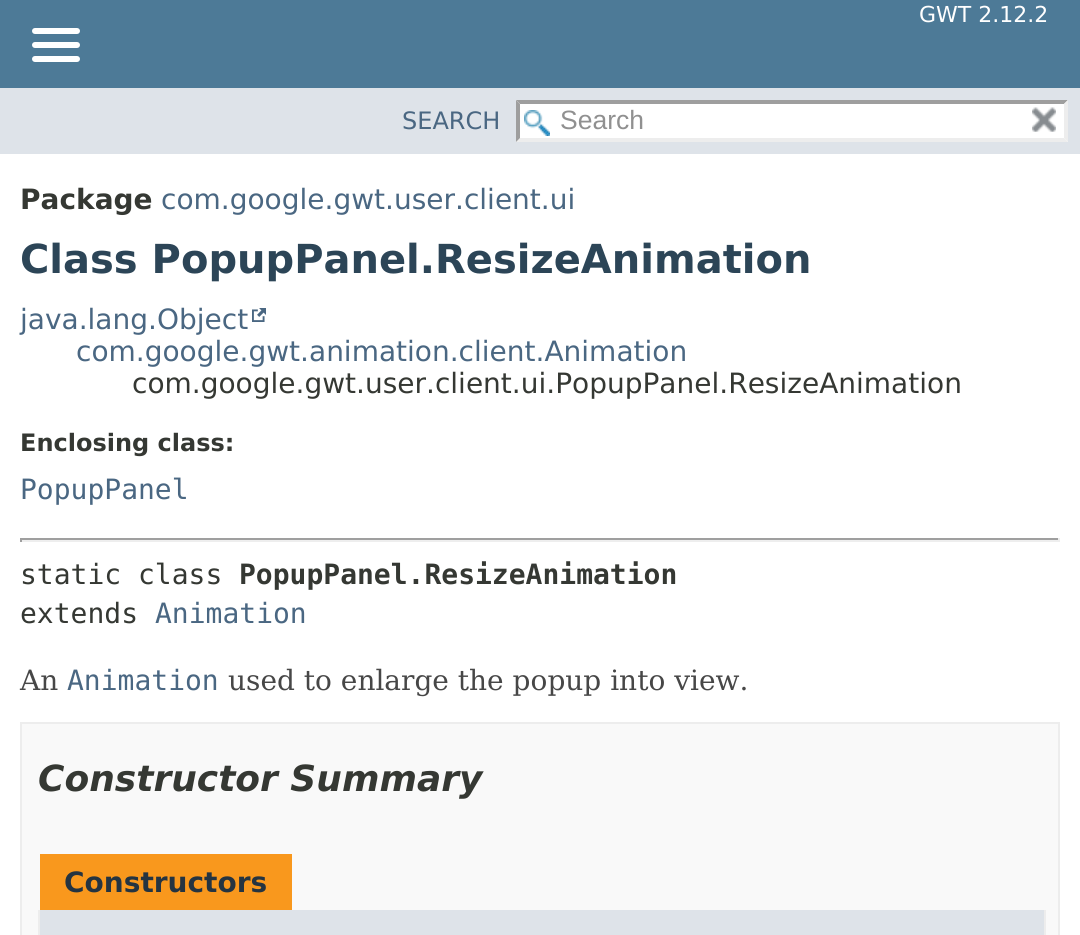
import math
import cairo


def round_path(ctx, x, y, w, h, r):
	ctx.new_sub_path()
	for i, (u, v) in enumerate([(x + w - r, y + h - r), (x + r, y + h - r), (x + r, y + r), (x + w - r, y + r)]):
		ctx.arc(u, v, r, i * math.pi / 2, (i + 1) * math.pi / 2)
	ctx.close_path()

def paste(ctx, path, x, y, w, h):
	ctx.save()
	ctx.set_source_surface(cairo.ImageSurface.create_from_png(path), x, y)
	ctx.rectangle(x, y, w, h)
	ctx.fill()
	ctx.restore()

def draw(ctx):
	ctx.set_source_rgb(1, 1, 1)
	ctx.paint()
	ctx.set_source_rgb(0.302, 0.478, 0.592)
	ctx.rectangle(0, 0, 1080, 88)
	ctx.fill()
	ctx.select_font_face('DejaVu Sans')
	ctx.set_font_size(22)
	ctx.set_source_rgb(1, 1, 1)
	ctx.move_to(919, 22)
	ctx.show_text('GWT 2.12.2')
	round_path(ctx, 32, 28, 48, 6, 3)
	ctx.fill()
	round_path(ctx, 32, 42, 48, 6, 3)
	ctx.fill()
	round_path(ctx, 32, 56, 48, 6, 3)
	ctx.fill()
	ctx.set_source_rgb(0.871, 0.89, 0.914)
	ctx.rectangle(0, 88, 1080, 66)
	ctx.fill()
	ctx.set_font_size(24)
	ctx.set_source_rgb(0.29, 0.404, 0.51)
	ctx.move_to(402, 129)
	ctx.show_text('SEARCH')
	ctx.set_source_rgb(1, 1, 1)
	ctx.rectangle(516, 100, 552, 42)
	ctx.fill()
	paste(ctx, 'media/1.png', 524, 110, 26, 26)
	ctx.set_source_rgb(0.62, 0.62, 0.62)
	ctx.new_path()
	ctx.move_to(516, 100)
	ctx.line_to(1068, 100)
	ctx.line_to(1064, 104)
	ctx.line_to(520, 104)
	ctx.close_path()
	ctx.fill()
	ctx.set_source_rgb(0.929, 0.929, 0.929)
	ctx.new_path()
	ctx.move_to(1068, 100)
	ctx.line_to(1068, 142)
	ctx.line_to(1064, 138)
	ctx.line_to(1064, 104)
	ctx.close_path()
	ctx.fill()
	ctx.new_path()
	ctx.move_to(1068, 142)
	ctx.line_to(516, 142)
	ctx.line_to(520, 138)
	ctx.line_to(1064, 138)
	ctx.close_path()
	ctx.fill()
	ctx.set_source_rgb(0.62, 0.62, 0.62)
	ctx.new_path()
	ctx.move_to(516, 142)
	ctx.line_to(516, 100)
	ctx.line_to(520, 104)
	ctx.line_to(520, 138)
	ctx.close_path()
	ctx.fill()
	ctx.select_font_face('Liberation Sans')
	ctx.set_font_size(26.5)
	ctx.set_source_rgb(0.565, 0.565, 0.565)
	ctx.move_to(560, 129)
	ctx.show_text('Search')
	paste(ctx, 'media/2.png', 1032, 107, 24, 25)
	ctx.select_font_face('DejaVu Sans', cairo.FONT_SLANT_NORMAL, cairo.FONT_WEIGHT_BOLD)
	ctx.set_font_size(28)
	ctx.set_source_rgb(0.208, 0.22, 0.2)
	ctx.move_to(20, 209)
	ctx.show_text('Package')
	ctx.select_font_face('DejaVu Sans')
	ctx.set_source_rgb(0.29, 0.404, 0.51)
	ctx.move_to(161, 209)
	ctx.show_text('com.google.gwt.user.client.ui')
	ctx.select_font_face('DejaVu Sans', cairo.FONT_SLANT_NORMAL, cairo.FONT_WEIGHT_BOLD)
	ctx.set_font_size(40)
	ctx.set_source_rgb(0.173, 0.271, 0.341)
	ctx.move_to(20, 273)
	ctx.show_text('Class PopupPanel.ResizeAnimation')
	ctx.select_font_face('DejaVu Sans')
	ctx.set_font_size(28)
	ctx.set_source_rgb(0.29, 0.404, 0.51)
	ctx.move_to(20, 329)
	ctx.show_text('java.lang.Object')
	paste(ctx, 'media/3.png', 252, 308, 14, 14)
	ctx.move_to(76, 361)
	ctx.show_text('com.google.gwt.animation.client.Animation')
	ctx.set_source_rgb(0.208, 0.22, 0.2)
	ctx.move_to(132, 393)
	ctx.show_text('com.google.gwt.user.client.ui.PopupPanel.ResizeAnimation')
	ctx.select_font_face('DejaVu Sans', cairo.FONT_SLANT_NORMAL, cairo.FONT_WEIGHT_BOLD)
	ctx.set_font_size(24)
	ctx.move_to(20, 451)
	ctx.show_text('Enclosing class:')
	ctx.select_font_face('DejaVu Sans Mono')
	ctx.set_font_size(28)
	ctx.set_source_rgb(0.29, 0.404, 0.51)
	ctx.move_to(20, 499)
	ctx.show_text('PopupPanel')
	ctx.set_source_rgb(0.624, 0.624, 0.624)
	ctx.rectangle(20, 538, 1040, 2)
	ctx.fill()
	ctx.set_source_rgb(0.933, 0.933, 0.933)
	ctx.rectangle(1058, 538, 2, 4)
	ctx.rectangle(20, 540, 1040, 2)
	ctx.fill()
	ctx.set_source_rgb(0.624, 0.624, 0.624)
	ctx.rectangle(20, 538, 2, 4)
	ctx.fill()
	ctx.set_source_rgb(0.208, 0.22, 0.2)
	ctx.move_to(20, 584)
	ctx.show_text('static class')
	ctx.select_font_face('DejaVu Sans Mono', cairo.FONT_SLANT_NORMAL, cairo.FONT_WEIGHT_BOLD)
	ctx.move_to(239, 584)
	ctx.show_text('PopupPanel.ResizeAnimation')
	ctx.select_font_face('DejaVu Sans Mono')
	ctx.move_to(20, 623)
	ctx.show_text('extends')
	ctx.set_source_rgb(0.29, 0.404, 0.51)
	ctx.move_to(155, 623)
	ctx.show_text('Animation')
	ctx.select_font_face('DejaVu Serif')
	ctx.set_source_rgb(0.278, 0.278, 0.278)
	ctx.move_to(20, 690)
	ctx.show_text('An')
	ctx.select_font_face('DejaVu Sans Mono')
	ctx.set_source_rgb(0.29, 0.404, 0.51)
	ctx.move_to(67, 690)
	ctx.show_text('Animation')
	ctx.select_font_face('DejaVu Serif')
	ctx.set_source_rgb(0.278, 0.278, 0.278)
	ctx.move_to(228, 690)
	ctx.show_text('used to enlarge the popup into view.')
	ctx.set_source_rgb(0.973, 0.973, 0.973)
	ctx.rectangle(21, 723, 1038, 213)
	ctx.fill_preserve()
	ctx.set_source_rgb(0.929, 0.929, 0.929)
	ctx.stroke()
	ctx.select_font_face('DejaVu Sans', cairo.FONT_SLANT_ITALIC, cairo.FONT_WEIGHT_BOLD)
	ctx.set_font_size(36)
	ctx.set_source_rgb(0.208, 0.22, 0.2)
	ctx.move_to(38, 791)
	ctx.show_text('Constructor Summary')
	ctx.set_source_rgb(0.973, 0.596, 0.114)
	ctx.rectangle(40, 854, 252, 56)
	ctx.fill()
	ctx.select_font_face('DejaVu Sans', cairo.FONT_SLANT_NORMAL, cairo.FONT_WEIGHT_BOLD)
	ctx.set_font_size(28)
	ctx.set_source_rgb(0.145, 0.204, 0.255)
	ctx.move_to(64, 892)
	ctx.show_text('Constructors')
	ctx.set_source_rgb(0.929, 0.929, 0.929)
	ctx.rectangle(1044, 910, 2, 25)
	ctx.rectangle(38, 910, 2, 25)
	ctx.fill()
	ctx.set_source_rgb(0.871, 0.89, 0.914)
	ctx.rectangle(40, 910, 1004, 25)
	ctx.fill()


surface = cairo.ImageSurface(cairo.FORMAT_RGB24, 1080, 935)
ctx = cairo.Context(surface)
options = cairo.FontOptions()
options.set_hint_metrics(cairo.HINT_METRICS_OFF)
options.set_hint_style(cairo.HINT_STYLE_NONE)
ctx.set_font_options(options)
ctx.set_miter_limit(4)
draw(ctx)
surface.write_to_png('image.png')
